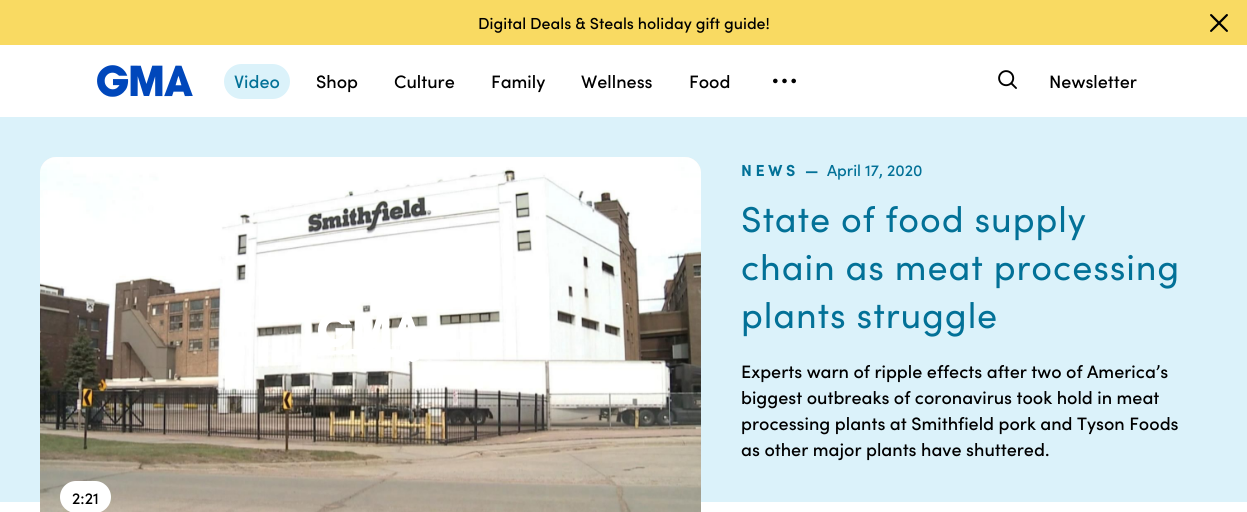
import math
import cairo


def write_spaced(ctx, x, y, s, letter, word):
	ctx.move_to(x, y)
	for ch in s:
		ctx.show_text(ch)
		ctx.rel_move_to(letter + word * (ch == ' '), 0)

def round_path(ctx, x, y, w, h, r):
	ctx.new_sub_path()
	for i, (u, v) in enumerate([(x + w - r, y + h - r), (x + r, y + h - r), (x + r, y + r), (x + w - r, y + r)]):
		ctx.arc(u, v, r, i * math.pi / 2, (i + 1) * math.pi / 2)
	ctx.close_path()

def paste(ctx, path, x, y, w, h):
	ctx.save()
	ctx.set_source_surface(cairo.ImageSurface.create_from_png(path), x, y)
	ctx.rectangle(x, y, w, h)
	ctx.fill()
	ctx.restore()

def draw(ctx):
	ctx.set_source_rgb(1, 1, 1)
	ctx.paint()
	ctx.set_source_rgb(0.973, 0.855, 0.384)
	ctx.rectangle(0, 0, 1247, 45)
	ctx.fill()
	ctx.select_font_face('Sofia Medium')
	ctx.set_font_size(16)
	ctx.set_source_rgb(0, 0, 0)
	ctx.move_to(478, 29)
	ctx.show_text('Digital Deals & Steals holiday gift guide!')
	paste(ctx, 'media/1.png', 1210, 14, 18, 18)
	paste(ctx, 'media/2.png', 97, 65, 96, 32)
	ctx.set_source_rgb(0.859, 0.949, 0.98)
	round_path(ctx, 224, 64, 66, 35, 17.5)
	ctx.fill()
	ctx.set_font_size(18)
	ctx.set_source_rgb(0.008, 0.443, 0.592)
	ctx.move_to(234, 88)
	ctx.show_text('Video')
	ctx.set_source_rgb(0, 0, 0)
	for x, y, s in [
		(316, 88, 'Shop'),
		(394, 88, 'Culture'),
		(491, 88, 'Family'),
		(581, 88, 'Wellness'),
		(689, 88, 'Food'),
	]:
		ctx.move_to(x, y)
		ctx.show_text(s)
	paste(ctx, 'media/3.png', 773, 78, 23, 6)
	paste(ctx, 'media/4.png', 998, 70, 19, 19)
	ctx.move_to(1049, 88)
	ctx.show_text('Newsletter')
	ctx.set_source_rgb(0.859, 0.949, 0.98)
	ctx.rectangle(0, 117, 1247, 385)
	ctx.fill()
	ctx.select_font_face('Sofia', cairo.FONT_SLANT_NORMAL, cairo.FONT_WEIGHT_BOLD)
	ctx.set_font_size(16)
	ctx.set_source_rgb(0.008, 0.443, 0.592)
	write_spaced(ctx, 741, 176, 'NEWS', 3.5, 0)
	ctx.move_to(805, 176)
	ctx.show_text('—')
	ctx.select_font_face('Sofia Medium')
	ctx.move_to(827, 176)
	ctx.show_text('April 17, 2020')
	ctx.select_font_face('Sofia')
	ctx.set_font_size(36)
	for x, y, s in [
		(741, 232, 'State of food supply'),
		(741, 280, 'chain as meat processing'),
		(741, 328, 'plants struggle'),
	]:
		write_spaced(ctx, x, y, s, 0.9, 0)
	ctx.select_font_face('Sofia Medium')
	ctx.set_font_size(18)
	ctx.set_source_rgb(0, 0, 0)
	for x, y, s in [
		(741, 378, 'Experts warn of ripple effects after two of America’s'),
		(741, 404, 'biggest outbreaks of coronavirus took hold in meat'),
		(741, 430, 'processing plants at Smithfield pork and Tyson Foods'),
		(741, 456, 'as other major plants have shuttered.'),
	]:
		ctx.move_to(x, y)
		ctx.show_text(s)
	ctx.set_source_rgb(0.933, 0.933, 0.933)
	round_path(ctx, 40, 157, 661, 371, 16)
	ctx.fill()
	paste(ctx, 'media/6.png', 40, 157, 661, 355)
	paste(ctx, 'media/5.png', 318, 313, 101, 49)
	ctx.set_source_rgb(1, 1, 1)
	round_path(ctx, 60, 481, 51, 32, 16)
	ctx.fill()
	ctx.set_font_size(16)
	ctx.set_source_rgb(0, 0, 0)
	ctx.move_to(72, 504)
	ctx.show_text('2:21')


surface = cairo.ImageSurface(cairo.FORMAT_RGB24, 1247, 512)
ctx = cairo.Context(surface)
options = cairo.FontOptions()
options.set_hint_metrics(cairo.HINT_METRICS_OFF)
options.set_hint_style(cairo.HINT_STYLE_NONE)
ctx.set_font_options(options)
ctx.set_miter_limit(4)
draw(ctx)
surface.write_to_png('image.png')
